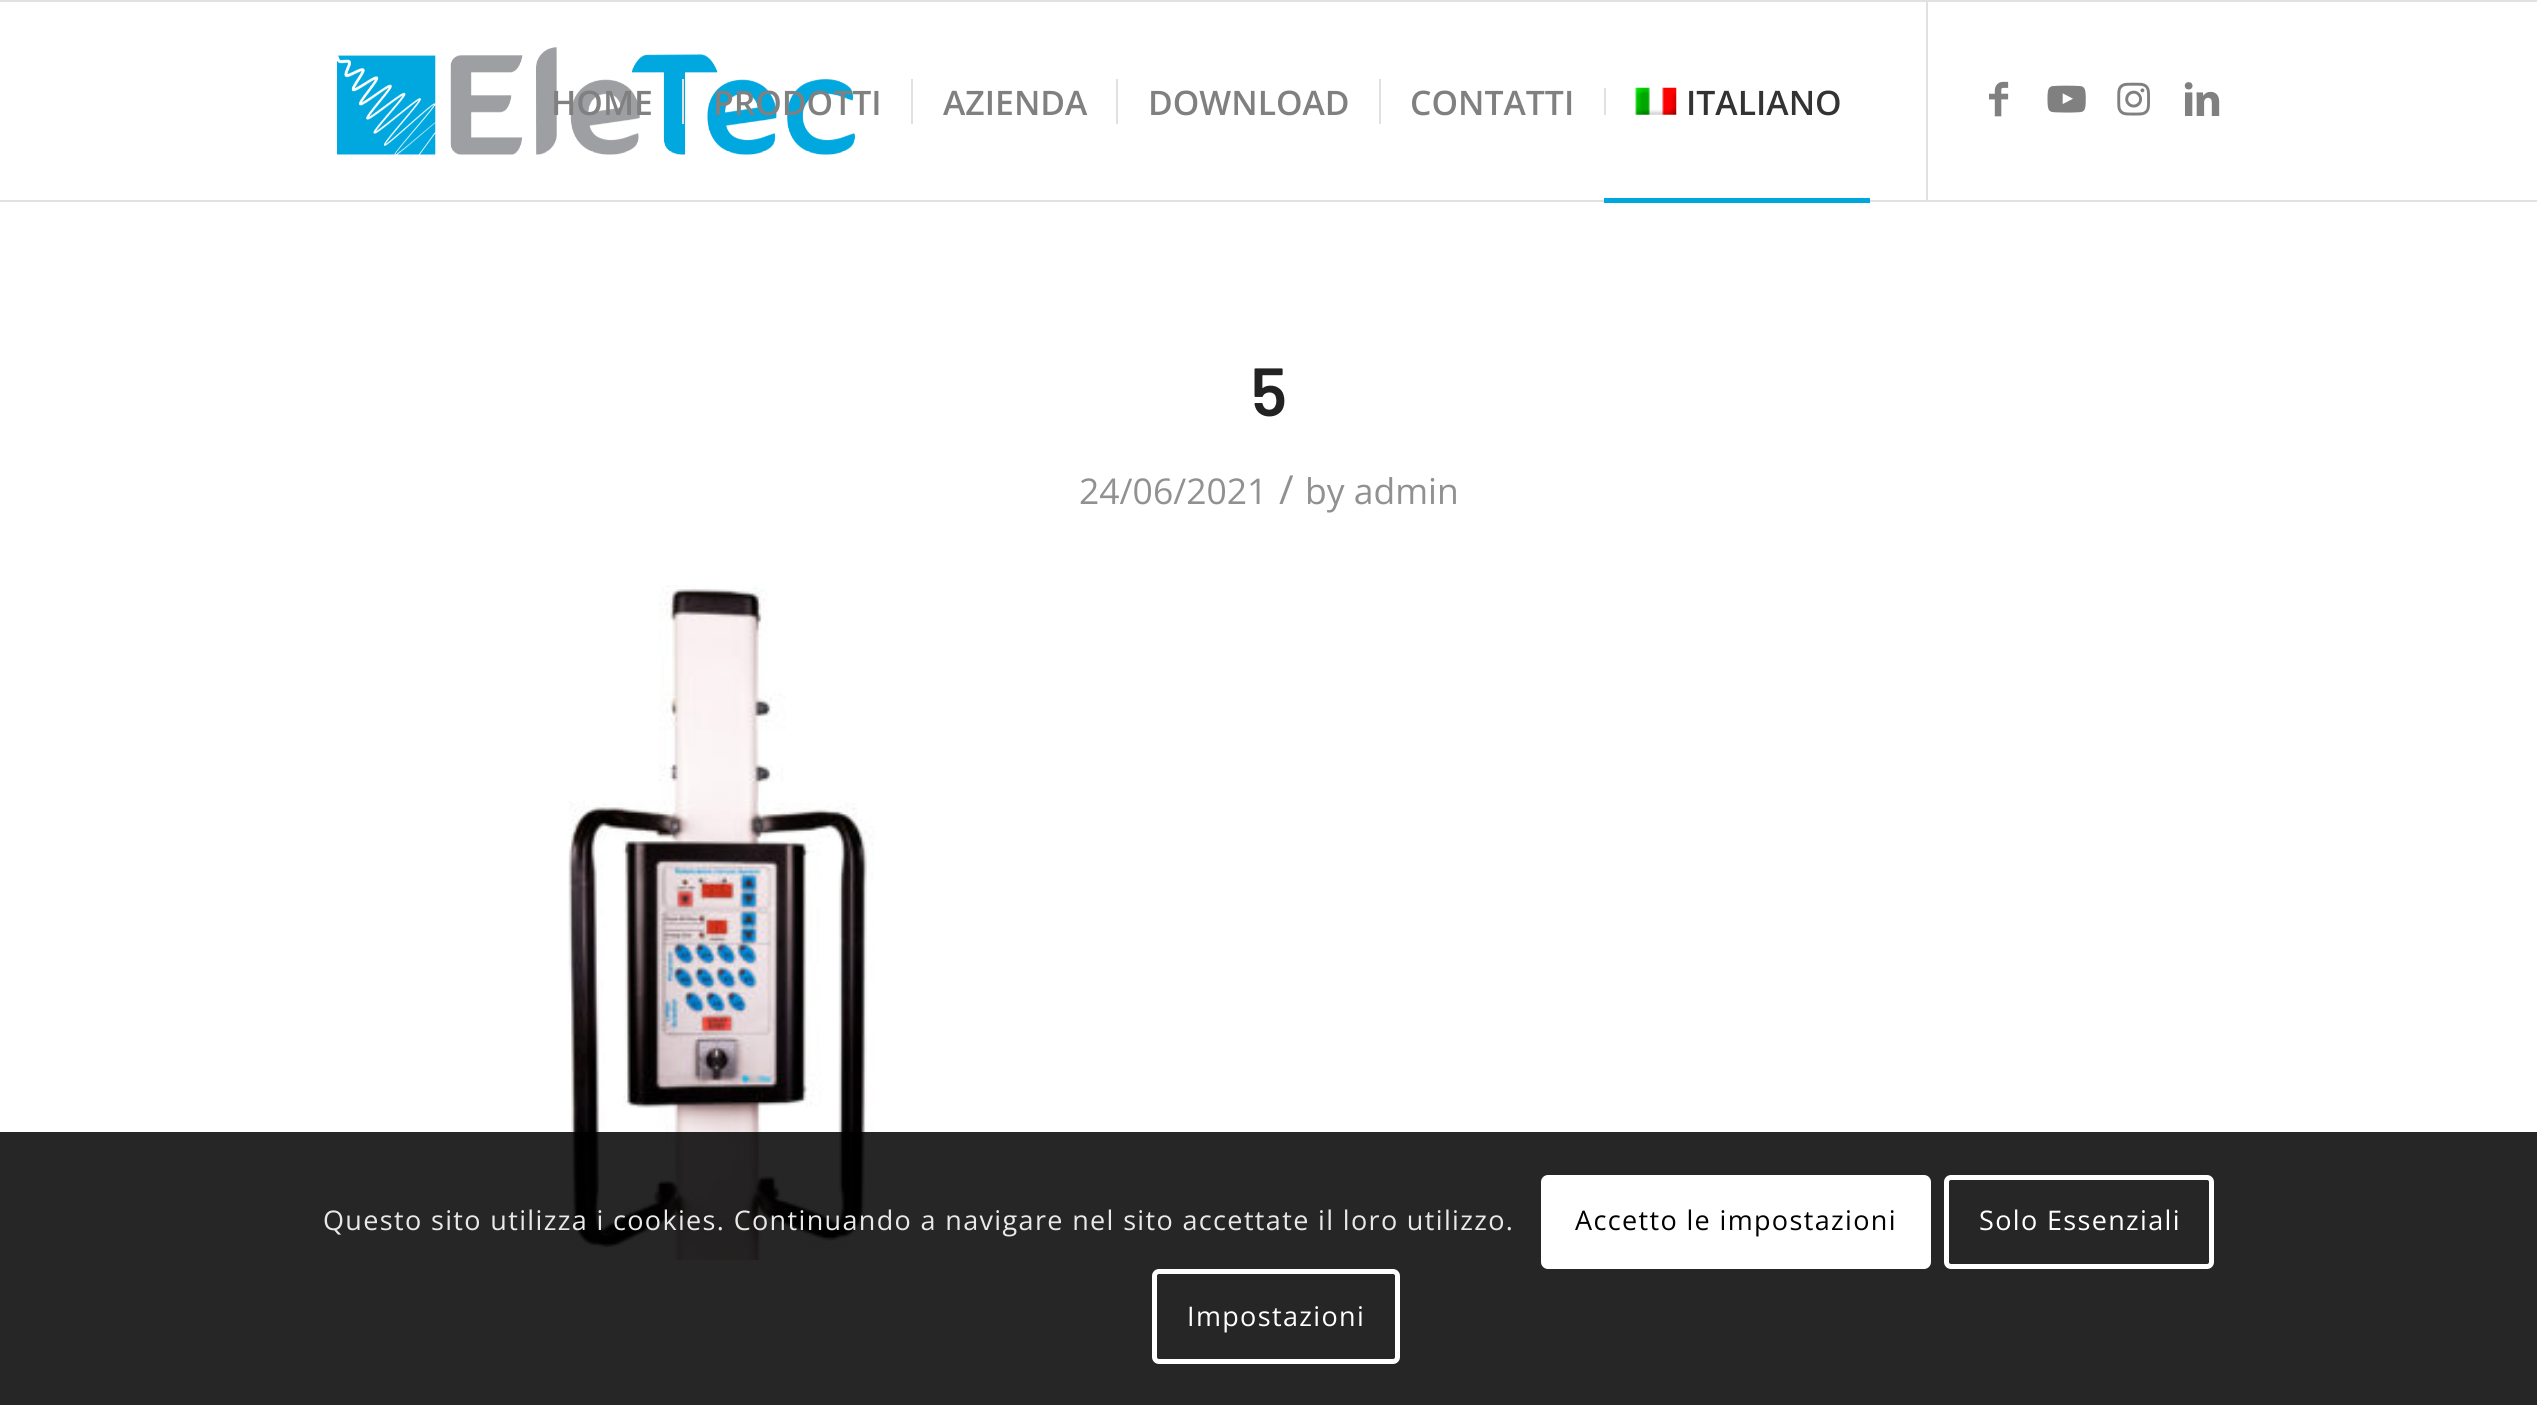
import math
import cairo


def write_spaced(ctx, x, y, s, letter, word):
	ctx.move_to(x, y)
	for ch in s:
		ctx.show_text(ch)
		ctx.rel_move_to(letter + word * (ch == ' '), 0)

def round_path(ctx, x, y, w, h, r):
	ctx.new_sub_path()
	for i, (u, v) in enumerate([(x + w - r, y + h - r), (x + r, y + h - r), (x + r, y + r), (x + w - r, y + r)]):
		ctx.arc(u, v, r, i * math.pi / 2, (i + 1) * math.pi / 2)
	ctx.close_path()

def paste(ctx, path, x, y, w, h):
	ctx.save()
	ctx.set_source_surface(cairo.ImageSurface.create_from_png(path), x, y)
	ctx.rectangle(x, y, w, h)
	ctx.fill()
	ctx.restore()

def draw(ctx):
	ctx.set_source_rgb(1, 1, 1)
	ctx.paint()
	ctx.set_source_rgb(0.882, 0.882, 0.882)
	ctx.rectangle(0, 0, 2537, 2)
	ctx.fill()
	ctx.rectangle(0, 200, 2537, 2)
	ctx.fill()
	paste(ctx, 'media/1.png', 337, 47, 518, 108)
	ctx.rectangle(1926, 2, 2, 198)
	ctx.fill()
	ctx.select_font_face('Open Sans SemiBold')
	ctx.set_font_size(33.75)
	ctx.set_source_rgb(0.502, 0.502, 0.502)
	ctx.move_to(551, 115)
	ctx.show_text('HOME')
	ctx.move_to(713, 115)
	ctx.show_text('PRODOTTI')
	ctx.set_source_rgb(0.882, 0.882, 0.882)
	ctx.rectangle(682, 79, 2, 45)
	ctx.fill()
	ctx.set_source_rgb(0.502, 0.502, 0.502)
	ctx.move_to(943, 115)
	ctx.show_text('AZIENDA')
	ctx.set_source_rgb(0.882, 0.882, 0.882)
	ctx.rectangle(911, 79, 2, 45)
	ctx.fill()
	ctx.set_source_rgb(0.502, 0.502, 0.502)
	ctx.move_to(1148, 115)
	ctx.show_text('DOWNLOAD')
	ctx.set_source_rgb(0.882, 0.882, 0.882)
	ctx.rectangle(1116, 79, 2, 45)
	ctx.fill()
	ctx.set_source_rgb(0.502, 0.502, 0.502)
	ctx.move_to(1410, 115)
	ctx.show_text('CONTATTI')
	ctx.set_source_rgb(0.882, 0.882, 0.882)
	ctx.rectangle(1379, 79, 2, 45)
	ctx.fill()
	paste(ctx, 'media/2.png', 1635, 87, 42, 28)
	ctx.set_source_rgb(0.2, 0.2, 0.2)
	ctx.move_to(1686, 115)
	ctx.show_text('ITALIANO')
	ctx.set_source_rgb(0.882, 0.882, 0.882)
	ctx.rectangle(1604, 88, 2, 27)
	ctx.fill()
	ctx.set_source_rgb(0, 0.655, 0.875)
	ctx.rectangle(1604, 198, 266, 5)
	ctx.fill()
	paste(ctx, 'media/3.png', 1989, 81, 20, 36)
	paste(ctx, 'media/4.png', 2047, 85, 39, 28)
	paste(ctx, 'media/5.png', 2117, 82, 33, 34)
	paste(ctx, 'media/6.png', 2184, 82, 36, 34)
	ctx.select_font_face('Barlow SemiBold')
	ctx.set_font_size(68)
	ctx.set_source_rgb(0.133, 0.133, 0.133)
	ctx.move_to(1251, 416)
	ctx.show_text('5')
	ctx.select_font_face('Open Sans')
	ctx.set_font_size(35.5)
	ctx.set_source_rgb(0.569, 0.569, 0.569)
	ctx.move_to(1079, 504)
	ctx.show_text('24/06/2021')
	ctx.set_font_size(40)
	ctx.move_to(1279, 504)
	ctx.show_text('/')
	ctx.set_font_size(35.5)
	ctx.move_to(1305, 504)
	ctx.show_text('by admin')
	paste(ctx, 'media/7.png', 568, 585, 307, 675)
	ctx.set_source_rgba(0, 0, 0, 0.85)
	ctx.rectangle(0, 1132, 2537, 273)
	ctx.fill()
	ctx.set_font_size(27)
	ctx.set_source_rgb(0.914, 0.914, 0.914)
	write_spaced(ctx, 323, 1230, 'Questo sito utilizza i cookies. Continuando a navigare nel sito accettate il loro utilizzo.', 1.35, 0)
	ctx.set_source_rgb(1, 1, 1)
	round_path(ctx, 1541, 1175, 390, 94, 7)
	ctx.fill()
	ctx.set_source_rgb(0, 0, 0)
	write_spaced(ctx, 1575, 1230, 'Accetto le impostazioni', 1.35, 0)
	round_path(ctx, 1946.5, 1177.5, 265, 89, 4.5)
	ctx.set_source_rgb(1, 1, 1)
	ctx.set_line_width(5)
	ctx.stroke()
	write_spaced(ctx, 1979, 1230, 'Solo Essenziali', 1.35, 0)
	round_path(ctx, 1154.5, 1271.5, 243, 90, 4.5)
	ctx.stroke()
	write_spaced(ctx, 1187, 1326, 'Impostazioni', 1.35, 0)


surface = cairo.ImageSurface(cairo.FORMAT_RGB24, 2537, 1405)
ctx = cairo.Context(surface)
options = cairo.FontOptions()
options.set_hint_metrics(cairo.HINT_METRICS_OFF)
options.set_hint_style(cairo.HINT_STYLE_NONE)
ctx.set_font_options(options)
ctx.set_miter_limit(4)
draw(ctx)
surface.write_to_png('image.png')
